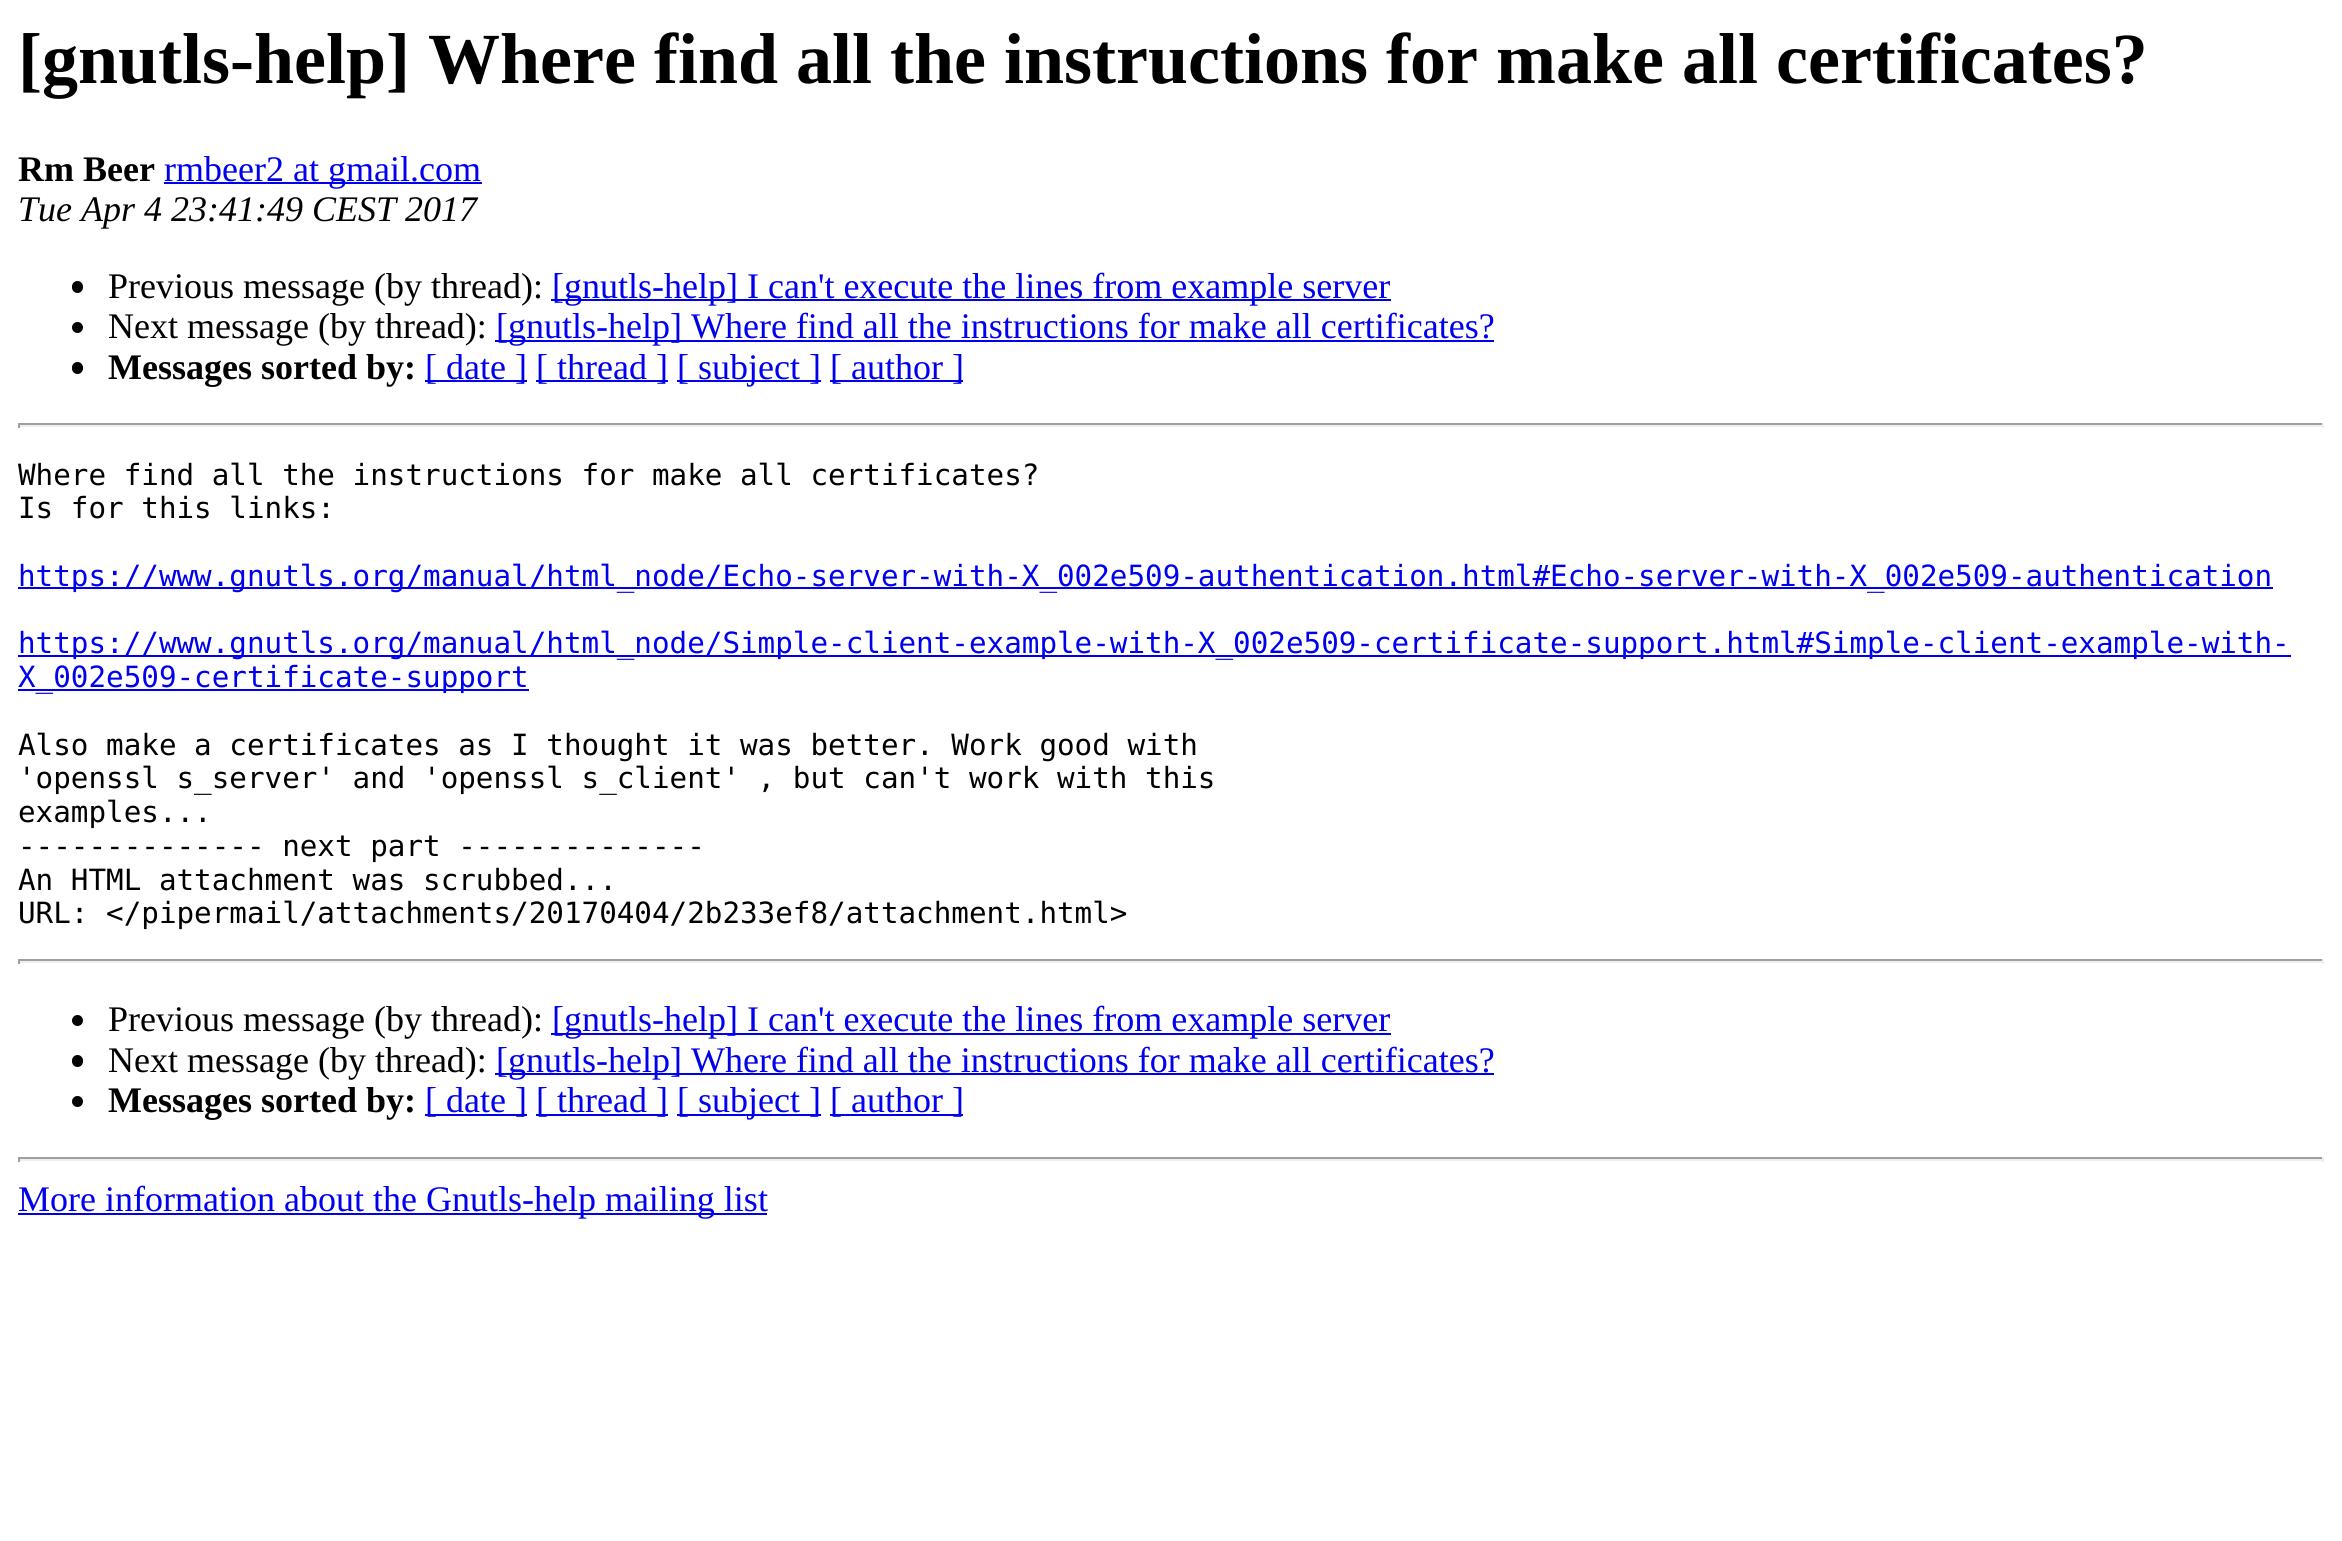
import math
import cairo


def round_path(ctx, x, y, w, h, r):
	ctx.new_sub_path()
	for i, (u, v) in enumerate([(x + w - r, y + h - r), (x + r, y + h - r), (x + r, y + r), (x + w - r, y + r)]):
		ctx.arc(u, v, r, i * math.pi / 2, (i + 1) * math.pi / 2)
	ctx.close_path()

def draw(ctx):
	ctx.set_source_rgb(1, 1, 1)
	ctx.paint()
	ctx.select_font_face('Liberation Serif', cairo.FONT_SLANT_NORMAL, cairo.FONT_WEIGHT_BOLD)
	ctx.set_font_size(72)
	ctx.set_source_rgb(0, 0, 0)
	ctx.move_to(18, 83)
	ctx.show_text('[gnutls-help] Where find all the instructions for make all certificates?')
	ctx.set_font_size(36)
	ctx.move_to(18, 181)
	ctx.show_text('Rm Beer')
	ctx.set_source_rgb(0, 0, 0.933)
	ctx.rectangle(164, 182, 318, 2)
	ctx.fill()
	ctx.select_font_face('Liberation Serif')
	ctx.move_to(164, 181)
	ctx.show_text('rmbeer2 at gmail.com')
	ctx.select_font_face('Liberation Serif', cairo.FONT_SLANT_ITALIC)
	ctx.set_source_rgb(0, 0, 0)
	ctx.move_to(18, 221)
	ctx.show_text('Tue Apr 4 23:41:49 CEST 2017')
	round_path(ctx, 72, 281, 11, 12, 5.5)
	ctx.fill()
	ctx.select_font_face('Liberation Serif')
	ctx.move_to(108, 298)
	ctx.show_text('Previous message (by thread):')
	ctx.set_source_rgb(0, 0, 0.933)
	ctx.rectangle(551, 299, 840, 2)
	ctx.fill()
	ctx.move_to(552, 298)
	ctx.show_text('[gnutls-help] I can\'t execute the lines from example server')
	ctx.set_source_rgb(0, 0, 0)
	ctx.new_path()
	ctx.arc(77.5, 327.5, 5.5, 0, 2 * math.pi)
	ctx.fill()
	ctx.move_to(108, 338)
	ctx.show_text('Next message (by thread):')
	ctx.set_source_rgb(0, 0, 0.933)
	ctx.rectangle(495, 340, 999, 2)
	ctx.fill()
	ctx.move_to(496, 338)
	ctx.show_text('[gnutls-help] Where find all the instructions for make all certificates?')
	ctx.set_source_rgb(0, 0, 0)
	round_path(ctx, 72, 362, 11, 12, 5.5)
	ctx.fill()
	ctx.select_font_face('Liberation Serif', cairo.FONT_SLANT_NORMAL, cairo.FONT_WEIGHT_BOLD)
	ctx.move_to(108, 379)
	ctx.show_text('Messages sorted by:')
	ctx.set_source_rgb(0, 0, 0.933)
	ctx.rectangle(425, 380, 102, 2)
	ctx.fill()
	ctx.select_font_face('Liberation Serif')
	ctx.move_to(425, 379)
	ctx.show_text('[ date ]')
	ctx.rectangle(536, 380, 132, 2)
	ctx.fill()
	ctx.move_to(536, 379)
	ctx.show_text('[ thread ]')
	ctx.rectangle(677, 380, 144, 2)
	ctx.fill()
	ctx.move_to(677, 379)
	ctx.show_text('[ subject ]')
	ctx.rectangle(830, 380, 133, 2)
	ctx.fill()
	ctx.move_to(830, 379)
	ctx.show_text('[ author ]')
	ctx.set_source_rgb(0.624, 0.624, 0.624)
	ctx.rectangle(18, 423, 2306, 2)
	ctx.fill()
	ctx.set_source_rgb(0.933, 0.933, 0.933)
	ctx.rectangle(2322, 423, 2, 5)
	ctx.rectangle(18, 425, 2306, 2)
	ctx.fill()
	ctx.set_source_rgb(0.624, 0.624, 0.624)
	ctx.rectangle(18, 423, 2, 5)
	ctx.fill()
	ctx.select_font_face('DejaVu Sans Mono')
	ctx.set_font_size(29.25)
	ctx.set_source_rgb(0, 0, 0)
	ctx.move_to(18, 485)
	ctx.show_text('Where find all the instructions for make all certificates?')
	ctx.move_to(18, 518)
	ctx.show_text('Is for this links:')
	ctx.set_source_rgb(0, 0, 0.933)
	ctx.rectangle(18, 587, 2255, 2)
	ctx.fill()
	ctx.move_to(18, 586)
	ctx.show_text('https://www.gnutls.org/manual/html_node/Echo-server-with-X_002e509-authentication.html#Echo-server-with-X_002e509-authentication')
	ctx.rectangle(18, 655, 2273, 2)
	ctx.fill()
	ctx.move_to(18, 653)
	ctx.show_text('https://www.gnutls.org/manual/html_node/Simple-client-example-with-X_002e509-certificate-support.html#Simple-client-example-with-')
	ctx.rectangle(18, 689, 511, 2)
	ctx.fill()
	ctx.move_to(18, 687)
	ctx.show_text('X_002e509-certificate-support')
	ctx.set_source_rgb(0, 0, 0)
	for x, y, s in [
		(18, 755, 'Also make a certificates as I thought it was better. Work good with'),
		(18, 788, '\'openssl s_server\' and \'openssl s_client\' , but can\'t work with this'),
		(18, 822, 'examples...'),
		(18, 856, '-------------- next part --------------'),
		(18, 890, 'An HTML attachment was scrubbed...'),
		(18, 923, 'URL: </pipermail/attachments/20170404/2b233ef8/attachment.html>'),
	]:
		ctx.move_to(x, y)
		ctx.show_text(s)
	ctx.set_source_rgb(0.624, 0.624, 0.624)
	ctx.rectangle(18, 959, 2306, 2)
	ctx.fill()
	ctx.set_source_rgb(0.933, 0.933, 0.933)
	ctx.rectangle(2322, 959, 2, 5)
	ctx.rectangle(18, 961, 2306, 2)
	ctx.fill()
	ctx.set_source_rgb(0.624, 0.624, 0.624)
	ctx.rectangle(18, 959, 2, 5)
	ctx.fill()
	ctx.set_source_rgb(0, 0, 0)
	ctx.arc(77.5, 1020.5, 5.5, 0, 2 * math.pi)
	ctx.fill()
	ctx.select_font_face('Liberation Serif')
	ctx.set_font_size(36)
	ctx.move_to(108, 1031)
	ctx.show_text('Previous message (by thread):')
	ctx.set_source_rgb(0, 0, 0.933)
	ctx.rectangle(551, 1033, 840, 2)
	ctx.fill()
	ctx.move_to(552, 1031)
	ctx.show_text('[gnutls-help] I can\'t execute the lines from example server')
	ctx.set_source_rgb(0, 0, 0)
	round_path(ctx, 72, 1055, 11, 12, 5.5)
	ctx.fill()
	ctx.move_to(108, 1072)
	ctx.show_text('Next message (by thread):')
	ctx.set_source_rgb(0, 0, 0.933)
	ctx.rectangle(495, 1073, 999, 2)
	ctx.fill()
	ctx.move_to(496, 1072)
	ctx.show_text('[gnutls-help] Where find all the instructions for make all certificates?')
	ctx.set_source_rgb(0, 0, 0)
	ctx.new_path()
	ctx.arc(77.5, 1101.5, 5.5, 0, 2 * math.pi)
	ctx.fill()
	ctx.select_font_face('Liberation Serif', cairo.FONT_SLANT_NORMAL, cairo.FONT_WEIGHT_BOLD)
	ctx.move_to(108, 1112)
	ctx.show_text('Messages sorted by:')
	ctx.set_source_rgb(0, 0, 0.933)
	ctx.rectangle(425, 1114, 102, 2)
	ctx.fill()
	ctx.select_font_face('Liberation Serif')
	ctx.move_to(425, 1112)
	ctx.show_text('[ date ]')
	ctx.rectangle(536, 1114, 132, 2)
	ctx.fill()
	ctx.move_to(536, 1112)
	ctx.show_text('[ thread ]')
	ctx.rectangle(677, 1114, 144, 2)
	ctx.fill()
	ctx.move_to(677, 1112)
	ctx.show_text('[ subject ]')
	ctx.rectangle(830, 1114, 133, 2)
	ctx.fill()
	ctx.move_to(830, 1112)
	ctx.show_text('[ author ]')
	ctx.set_source_rgb(0.624, 0.624, 0.624)
	ctx.rectangle(18, 1157, 2306, 2)
	ctx.fill()
	ctx.set_source_rgb(0.933, 0.933, 0.933)
	ctx.rectangle(2322, 1157, 2, 5)
	ctx.rectangle(18, 1159, 2306, 2)
	ctx.fill()
	ctx.set_source_rgb(0.624, 0.624, 0.624)
	ctx.rectangle(18, 1157, 2, 5)
	ctx.fill()
	ctx.set_source_rgb(0, 0, 0.933)
	ctx.rectangle(18, 1213, 749, 2)
	ctx.fill()
	ctx.move_to(18, 1211)
	ctx.show_text('More information about the Gnutls-help mailing list')


surface = cairo.ImageSurface(cairo.FORMAT_RGB24, 2342, 1541)
ctx = cairo.Context(surface)
options = cairo.FontOptions()
options.set_hint_metrics(cairo.HINT_METRICS_OFF)
options.set_hint_style(cairo.HINT_STYLE_NONE)
ctx.set_font_options(options)
ctx.set_miter_limit(4)
draw(ctx)
surface.write_to_png('image.png')
